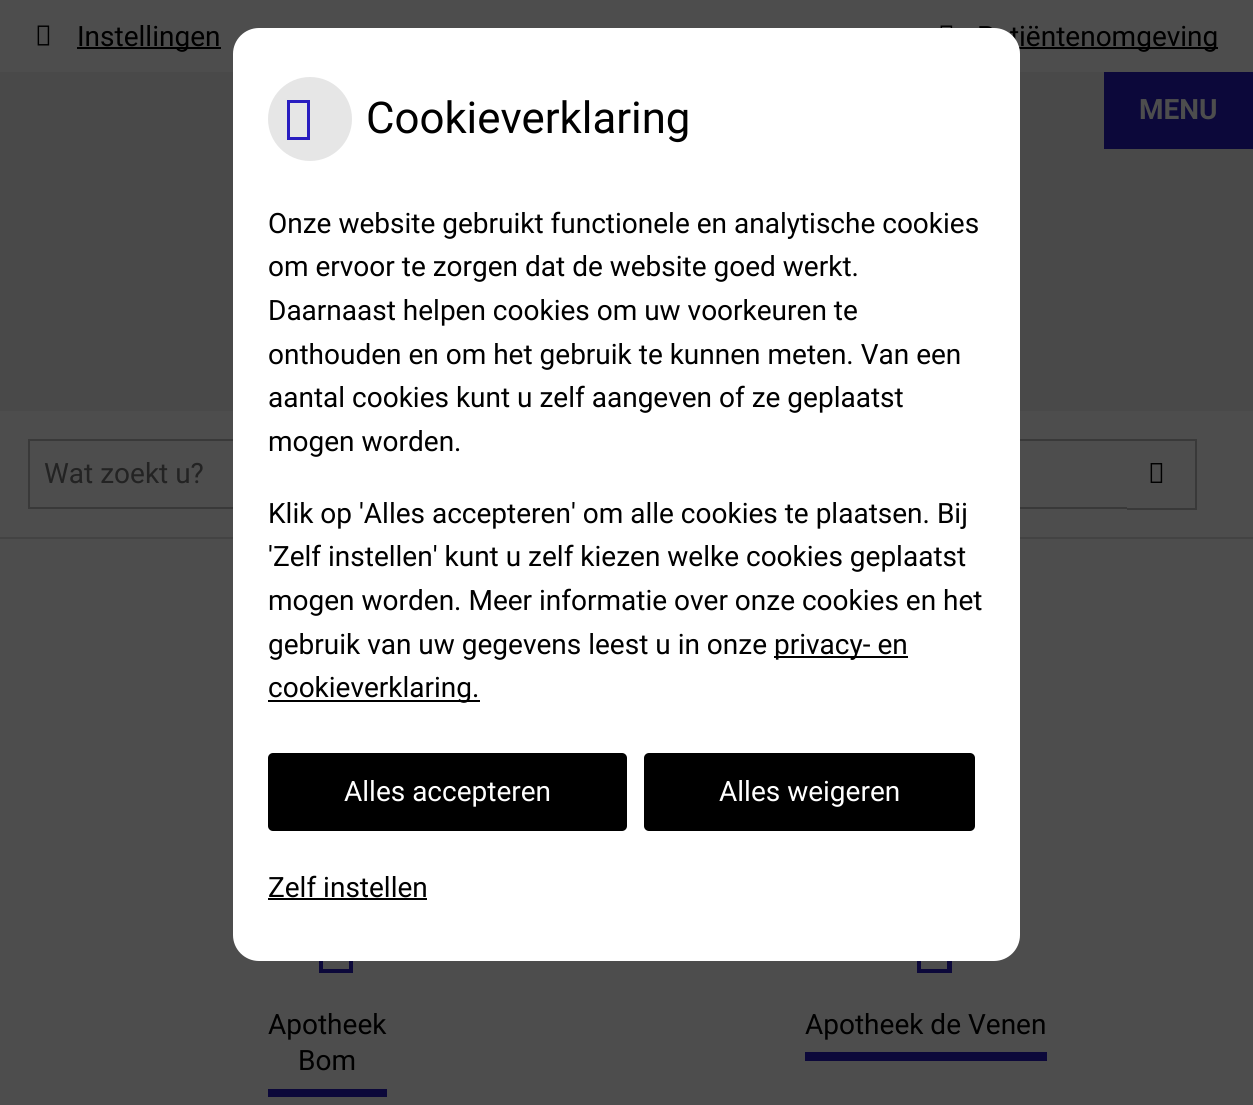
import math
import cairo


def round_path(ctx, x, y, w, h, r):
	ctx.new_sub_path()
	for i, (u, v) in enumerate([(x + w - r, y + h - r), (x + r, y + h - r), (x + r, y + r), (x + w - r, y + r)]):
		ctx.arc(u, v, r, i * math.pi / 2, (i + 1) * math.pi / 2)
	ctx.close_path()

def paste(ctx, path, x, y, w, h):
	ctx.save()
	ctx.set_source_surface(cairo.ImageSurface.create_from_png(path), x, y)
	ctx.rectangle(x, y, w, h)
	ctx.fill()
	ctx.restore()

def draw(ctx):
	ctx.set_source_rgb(0.302, 0.302, 0.302)
	ctx.paint()
	paste(ctx, 'media/1.png', 37, 25, 13, 21)
	ctx.set_source_rgb(0, 0, 0)
	ctx.rectangle(77, 47, 144, 2)
	ctx.fill()
	ctx.select_font_face('Roboto')
	ctx.set_font_size(28)
	ctx.move_to(77, 46)
	ctx.show_text('Instellingen')
	paste(ctx, 'media/2.png', 940, 25, 13, 3)
	ctx.rectangle(1019, 47, 199, 2)
	ctx.fill()
	ctx.move_to(977, 46)
	ctx.show_text('Patiëntenomgeving')
	ctx.set_source_rgb(0.286, 0.286, 0.286)
	ctx.rectangle(0, 72, 1253, 339)
	ctx.fill()
	ctx.set_source_rgb(0.047, 0.035, 0.227)
	ctx.rectangle(1104, 72, 149, 77)
	ctx.fill()
	ctx.select_font_face('Roboto', cairo.FONT_SLANT_NORMAL, cairo.FONT_WEIGHT_BOLD)
	ctx.set_source_rgb(0.302, 0.302, 0.302)
	ctx.move_to(1139, 119)
	ctx.show_text('MENU')
	ctx.rectangle(29, 440, 1167, 68)
	ctx.set_source_rgb(0.224, 0.224, 0.224)
	ctx.stroke()
	ctx.select_font_face('Roboto')
	ctx.set_source_rgb(0.137, 0.137, 0.137)
	ctx.move_to(44, 483)
	ctx.show_text('Wat zoekt u?')
	ctx.set_source_rgb(0.302, 0.302, 0.302)
	ctx.rectangle(1127, 507, 68, 1)
	ctx.fill()
	ctx.set_source_rgb(0.224, 0.224, 0.224)
	ctx.rectangle(1127, 509, 70, 1)
	ctx.fill()
	paste(ctx, 'media/3.png', 1150, 463, 13, 20)
	ctx.set_source_rgb(0.263, 0.263, 0.263)
	ctx.rectangle(0, 537, 1253, 2)
	ctx.fill()
	ctx.set_source_rgb(0.047, 0.035, 0.227)
	ctx.new_path()
	ctx.move_to(319, 973)
	ctx.line_to(319, 913)
	ctx.line_to(353, 913)
	ctx.line_to(353, 973)
	ctx.close_path()
	ctx.move_to(323, 969)
	ctx.line_to(349, 969)
	ctx.line_to(349, 917)
	ctx.line_to(323, 917)
	ctx.close_path()
	ctx.fill()
	ctx.set_source_rgb(0, 0, 0)
	ctx.move_to(268, 1034)
	ctx.show_text('Apotheek')
	ctx.move_to(298, 1070)
	ctx.show_text('Bom')
	ctx.set_source_rgb(0.047, 0.035, 0.227)
	ctx.rectangle(268, 1089, 119, 8)
	ctx.fill()
	ctx.new_path()
	ctx.move_to(917, 973)
	ctx.line_to(917, 913)
	ctx.line_to(952, 913)
	ctx.line_to(952, 973)
	ctx.close_path()
	ctx.move_to(921, 969)
	ctx.line_to(947, 969)
	ctx.line_to(947, 917)
	ctx.line_to(921, 917)
	ctx.close_path()
	ctx.fill()
	ctx.set_source_rgb(0, 0, 0)
	ctx.move_to(805, 1034)
	ctx.show_text('Apotheek de Venen')
	ctx.set_source_rgb(0.047, 0.035, 0.227)
	ctx.rectangle(805, 1052, 242, 9)
	ctx.fill()
	ctx.set_source_rgb(1, 1, 1)
	round_path(ctx, 233, 28, 787, 933, 26)
	ctx.fill()
	ctx.set_source_rgb(0.902, 0.902, 0.902)
	ctx.arc(310, 119, 42, 0, 2 * math.pi)
	ctx.fill()
	ctx.set_source_rgb(0.161, 0.114, 0.753)
	ctx.new_path()
	ctx.move_to(287, 140)
	ctx.line_to(287, 100)
	ctx.line_to(310, 100)
	ctx.line_to(310, 140)
	ctx.close_path()
	ctx.move_to(290, 137)
	ctx.line_to(307, 137)
	ctx.line_to(307, 103)
	ctx.line_to(290, 103)
	ctx.close_path()
	ctx.fill()
	ctx.set_font_size(43.75)
	ctx.set_source_rgb(0, 0, 0)
	ctx.move_to(366, 133)
	ctx.show_text('Cookieverklaring')
	ctx.set_font_size(28)
	for x, y, s in [
		(268, 233, 'Onze website gebruikt functionele en analytische cookies'),
		(268, 276, 'om ervoor te zorgen dat de website goed werkt.'),
		(268, 320, 'Daarnaast helpen cookies om uw voorkeuren te'),
		(268, 364, 'onthouden en om het gebruik te kunnen meten. Van een'),
		(268, 407, 'aantal cookies kunt u zelf aangeven of ze geplaatst'),
		(268, 451, 'mogen worden.'),
		(268, 523, 'Klik op \'Alles accepteren\' om alle cookies te plaatsen. Bij'),
		(268, 566, '\'Zelf instellen\' kunt u zelf kiezen welke cookies geplaatst'),
		(268, 610, 'mogen worden. Meer informatie over onze cookies en het'),
		(268, 654, 'gebruik van uw gegevens leest u in onze'),
	]:
		ctx.move_to(x, y)
		ctx.show_text(s)
	ctx.rectangle(774, 656, 134, 2)
	ctx.fill()
	ctx.move_to(774, 654)
	ctx.show_text('privacy- en')
	ctx.rectangle(268, 700, 212, 2)
	ctx.fill()
	ctx.move_to(268, 697)
	ctx.show_text('cookieverklaring.')
	round_path(ctx, 268, 753, 359, 78, 5)
	ctx.fill()
	ctx.set_source_rgb(1, 1, 1)
	ctx.move_to(344, 801)
	ctx.show_text('Alles accepteren')
	ctx.set_source_rgb(0, 0, 0)
	round_path(ctx, 644, 753, 331, 78, 5)
	ctx.fill()
	ctx.set_source_rgb(1, 1, 1)
	ctx.move_to(719, 801)
	ctx.show_text('Alles weigeren')
	ctx.set_source_rgb(0, 0, 0)
	ctx.move_to(268, 897)
	ctx.show_text('Zelf instellen')
	ctx.rectangle(268, 898, 159, 2)
	ctx.fill()


surface = cairo.ImageSurface(cairo.FORMAT_RGB24, 1253, 1105)
ctx = cairo.Context(surface)
options = cairo.FontOptions()
options.set_hint_metrics(cairo.HINT_METRICS_OFF)
options.set_hint_style(cairo.HINT_STYLE_NONE)
ctx.set_font_options(options)
ctx.set_miter_limit(4)
draw(ctx)
surface.write_to_png('image.png')
